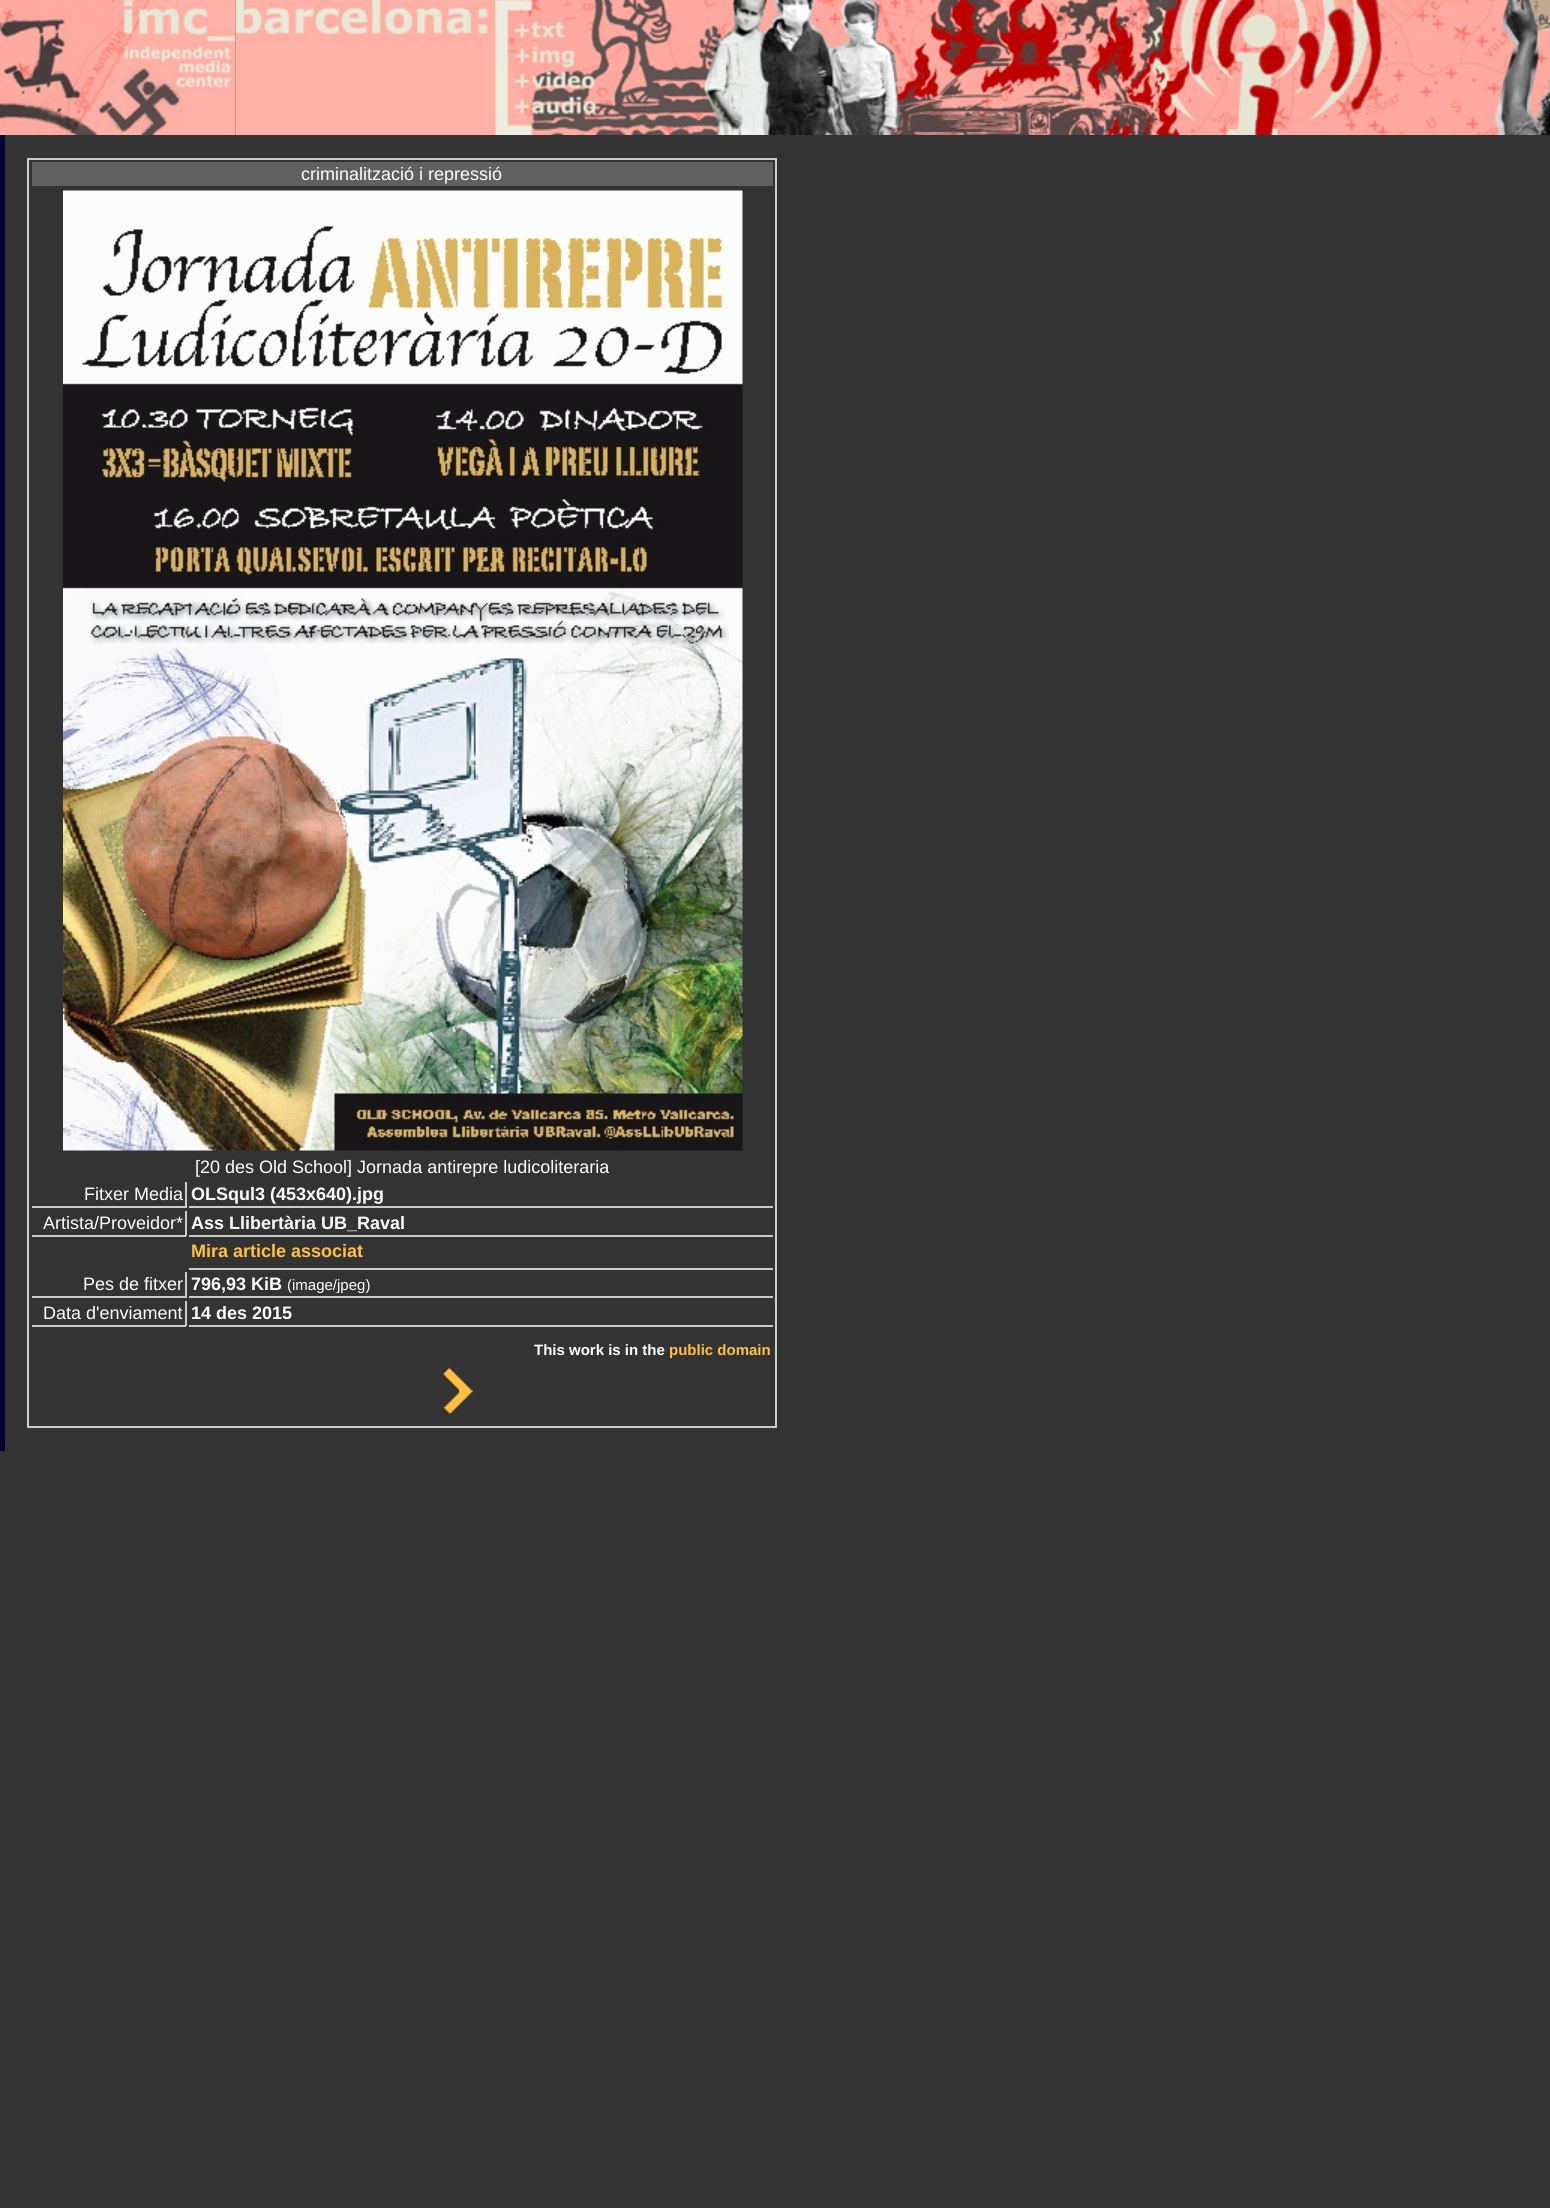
import math
import cairo


def paste(ctx, path, x, y, w, h):
	ctx.save()
	ctx.set_source_surface(cairo.ImageSurface.create_from_png(path), x, y)
	ctx.rectangle(x, y, w, h)
	ctx.fill()
	ctx.restore()

def draw(ctx):
	ctx.set_source_rgb(0.2, 0.2, 0.2)
	ctx.paint()
	paste(ctx, 'media/1.png', 0, 0, 236, 135)
	paste(ctx, 'media/2.png', 235, 0, 1315, 135)
	ctx.set_source_rgb(0, 0, 0.2)
	ctx.rectangle(0, 135, 5, 1316)
	ctx.fill()
	ctx.rectangle(28, 159, 748, 1268)
	ctx.set_source_rgb(0.8, 0.8, 0.8)
	ctx.stroke()
	ctx.set_source_rgb(0.376, 0.376, 0.376)
	ctx.rectangle(32, 162, 741, 24)
	ctx.fill()
	ctx.select_font_face('Liberation Sans')
	ctx.set_font_size(18)
	ctx.set_source_rgb(1, 1, 1)
	ctx.move_to(301, 180)
	ctx.show_text('criminalització i repressió')
	paste(ctx, 'media/3.png', 63, 190, 680, 961)
	ctx.move_to(195, 1173)
	ctx.show_text('[20 des Old School] Jornada antirepre ludicoliteraria')
	ctx.set_source_rgb(0.8, 0.8, 0.8)
	ctx.rectangle(185, 1182, 2, 26)
	ctx.fill()
	ctx.rectangle(32, 1206, 154, 2)
	ctx.fill()
	ctx.set_source_rgb(1, 1, 1)
	ctx.move_to(84, 1200)
	ctx.show_text('Fitxer Media')
	ctx.set_source_rgb(0.8, 0.8, 0.8)
	ctx.rectangle(189, 1206, 584, 2)
	ctx.fill()
	ctx.select_font_face('Liberation Sans', cairo.FONT_SLANT_NORMAL, cairo.FONT_WEIGHT_BOLD)
	ctx.set_source_rgb(1, 1, 1)
	ctx.move_to(191, 1200)
	ctx.show_text('OLSqul3 (453x640).jpg')
	ctx.set_source_rgb(0.8, 0.8, 0.8)
	ctx.rectangle(185, 1211, 2, 25)
	ctx.fill()
	ctx.rectangle(32, 1235, 154, 2)
	ctx.fill()
	ctx.select_font_face('Liberation Sans')
	ctx.set_source_rgb(1, 1, 1)
	ctx.move_to(43, 1229)
	ctx.show_text('Artista/Proveidor*')
	ctx.set_source_rgb(0.8, 0.8, 0.8)
	ctx.rectangle(189, 1235, 584, 2)
	ctx.fill()
	ctx.select_font_face('Liberation Sans', cairo.FONT_SLANT_NORMAL, cairo.FONT_WEIGHT_BOLD)
	ctx.set_source_rgb(1, 1, 1)
	ctx.move_to(191, 1229)
	ctx.show_text('Ass Llibertària UB_Raval')
	ctx.set_source_rgb(0.8, 0.8, 0.8)
	ctx.rectangle(189, 1268, 584, 2)
	ctx.fill()
	ctx.set_source_rgb(1, 0.757, 0.251)
	ctx.move_to(191, 1257)
	ctx.show_text('Mira article associat')
	ctx.set_source_rgb(0.8, 0.8, 0.8)
	ctx.rectangle(185, 1272, 2, 26)
	ctx.fill()
	ctx.rectangle(32, 1296, 154, 2)
	ctx.fill()
	ctx.select_font_face('Liberation Sans')
	ctx.set_source_rgb(1, 1, 1)
	ctx.move_to(83, 1290)
	ctx.show_text('Pes de fitxer')
	ctx.set_source_rgb(0.8, 0.8, 0.8)
	ctx.rectangle(189, 1296, 584, 2)
	ctx.fill()
	ctx.select_font_face('Liberation Sans', cairo.FONT_SLANT_NORMAL, cairo.FONT_WEIGHT_BOLD)
	ctx.set_source_rgb(1, 1, 1)
	ctx.move_to(191, 1290)
	ctx.show_text('796,93 KiB')
	ctx.select_font_face('Liberation Sans')
	ctx.set_font_size(15)
	ctx.move_to(287, 1290)
	ctx.show_text('(image/jpeg)')
	ctx.set_source_rgb(0.8, 0.8, 0.8)
	ctx.rectangle(185, 1301, 2, 25)
	ctx.fill()
	ctx.rectangle(32, 1325, 154, 2)
	ctx.fill()
	ctx.set_font_size(18)
	ctx.set_source_rgb(1, 1, 1)
	ctx.move_to(43, 1319)
	ctx.show_text('Data d\'enviament')
	ctx.set_source_rgb(0.8, 0.8, 0.8)
	ctx.rectangle(189, 1325, 584, 2)
	ctx.fill()
	ctx.select_font_face('Liberation Sans', cairo.FONT_SLANT_NORMAL, cairo.FONT_WEIGHT_BOLD)
	ctx.set_source_rgb(1, 1, 1)
	ctx.move_to(191, 1319)
	ctx.show_text('14 des 2015')
	ctx.set_font_size(15)
	ctx.move_to(534, 1355)
	ctx.show_text('This work is in the')
	ctx.set_source_rgb(1, 0.757, 0.251)
	ctx.move_to(669, 1355)
	ctx.show_text('public domain')
	paste(ctx, 'media/4.png', 443, 1367, 30, 47)


surface = cairo.ImageSurface(cairo.FORMAT_RGB24, 1550, 2208)
ctx = cairo.Context(surface)
options = cairo.FontOptions()
options.set_hint_metrics(cairo.HINT_METRICS_OFF)
options.set_hint_style(cairo.HINT_STYLE_NONE)
ctx.set_font_options(options)
ctx.set_miter_limit(4)
draw(ctx)
surface.write_to_png('image.png')
